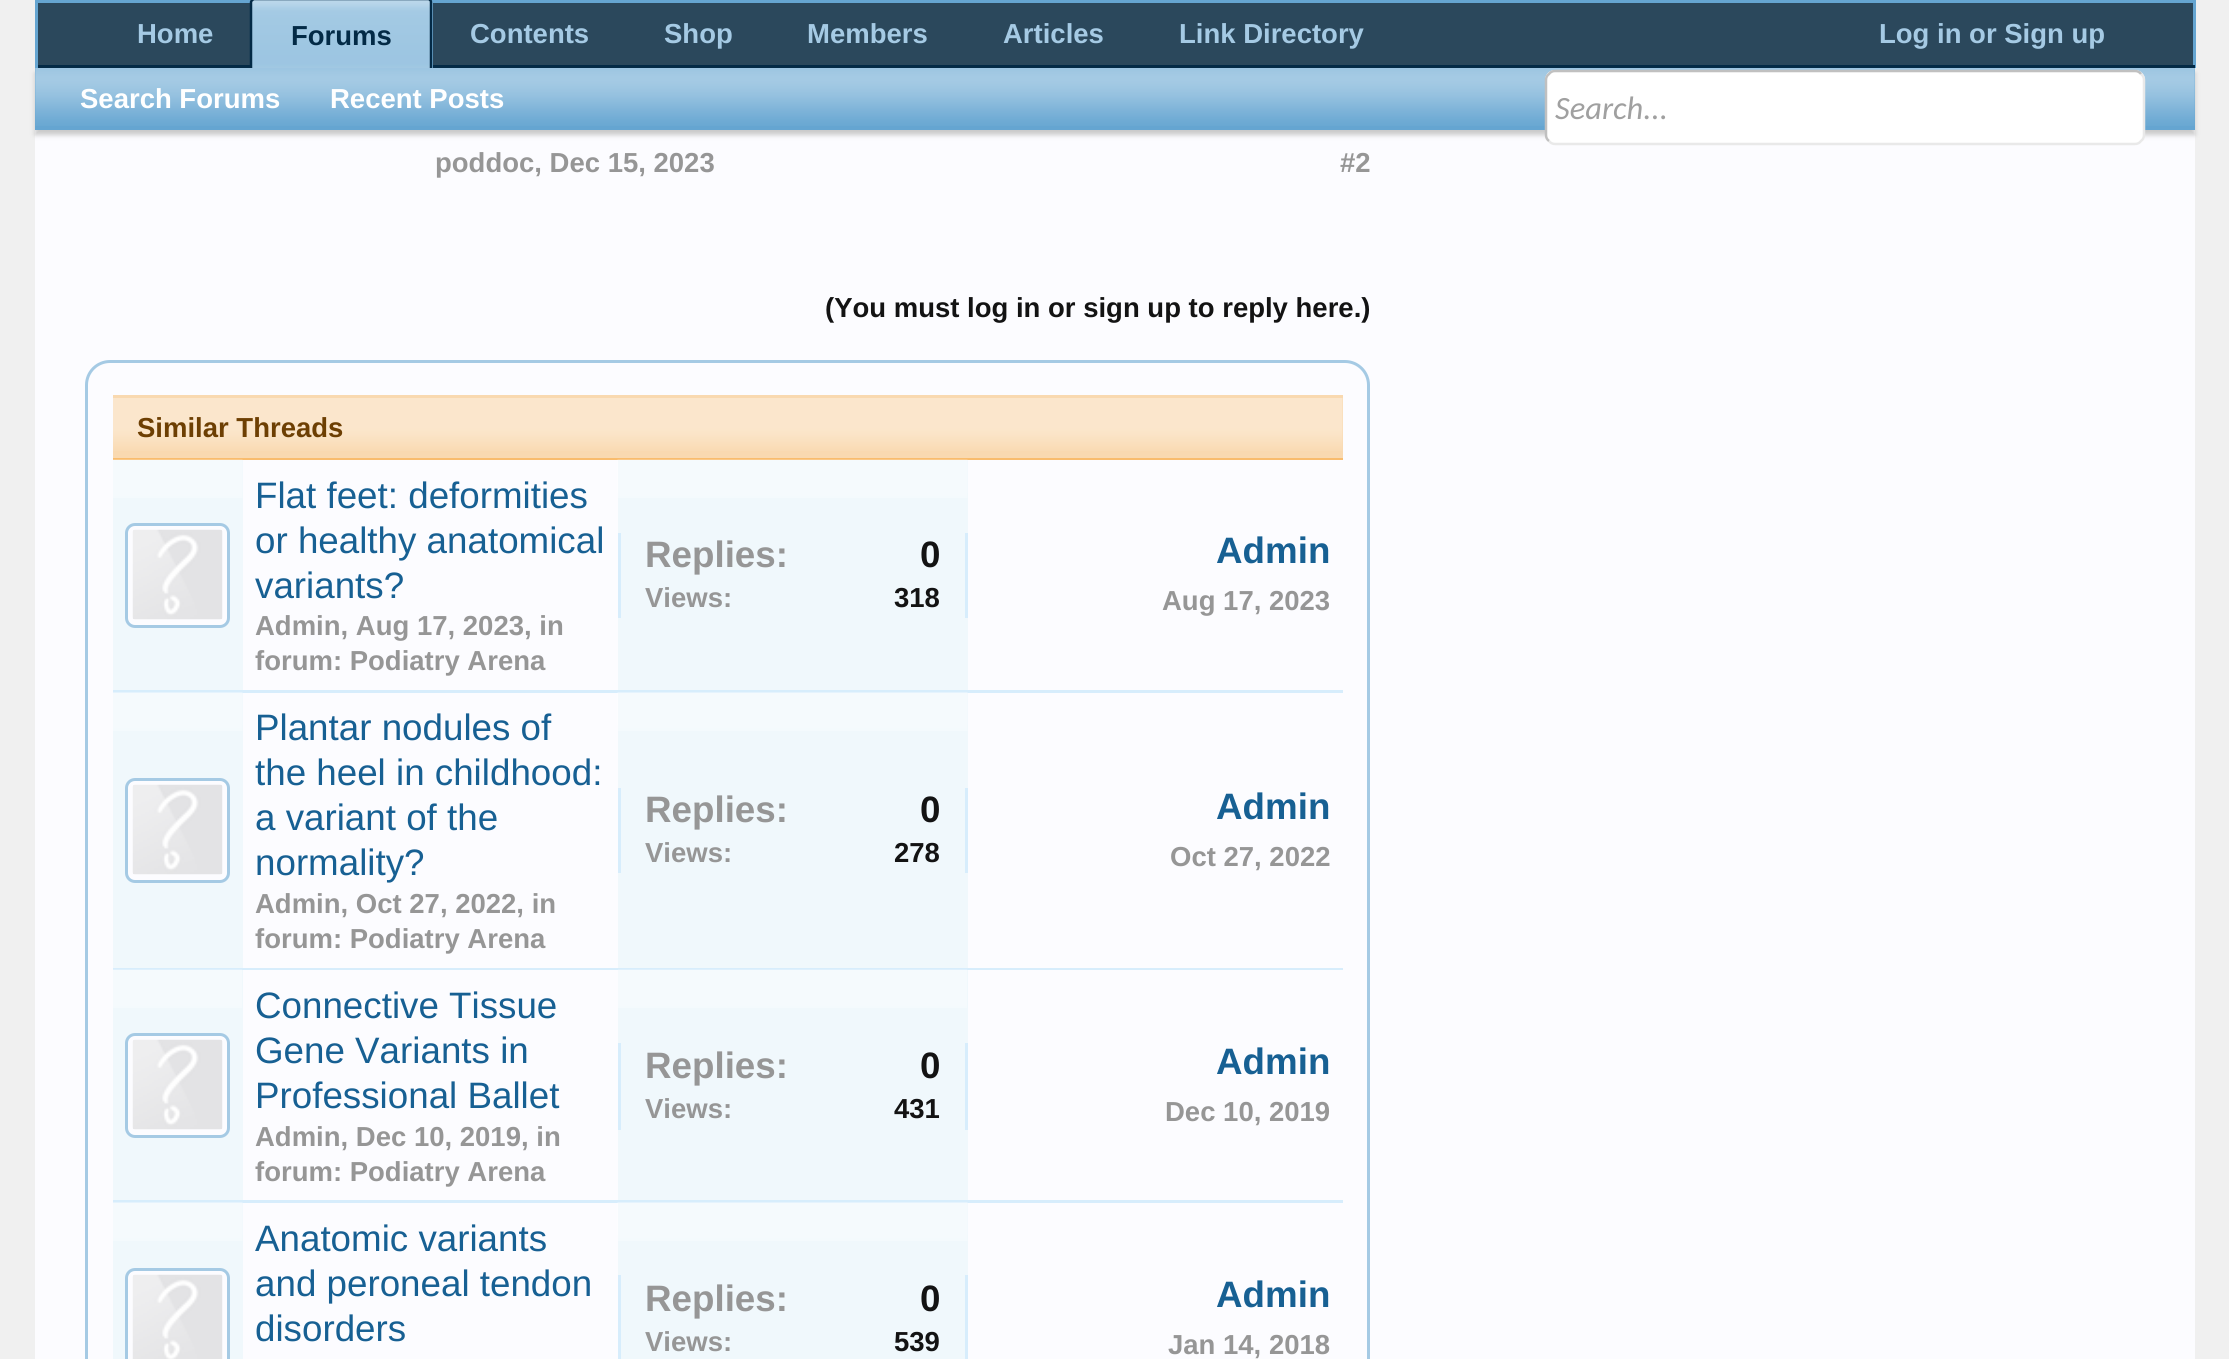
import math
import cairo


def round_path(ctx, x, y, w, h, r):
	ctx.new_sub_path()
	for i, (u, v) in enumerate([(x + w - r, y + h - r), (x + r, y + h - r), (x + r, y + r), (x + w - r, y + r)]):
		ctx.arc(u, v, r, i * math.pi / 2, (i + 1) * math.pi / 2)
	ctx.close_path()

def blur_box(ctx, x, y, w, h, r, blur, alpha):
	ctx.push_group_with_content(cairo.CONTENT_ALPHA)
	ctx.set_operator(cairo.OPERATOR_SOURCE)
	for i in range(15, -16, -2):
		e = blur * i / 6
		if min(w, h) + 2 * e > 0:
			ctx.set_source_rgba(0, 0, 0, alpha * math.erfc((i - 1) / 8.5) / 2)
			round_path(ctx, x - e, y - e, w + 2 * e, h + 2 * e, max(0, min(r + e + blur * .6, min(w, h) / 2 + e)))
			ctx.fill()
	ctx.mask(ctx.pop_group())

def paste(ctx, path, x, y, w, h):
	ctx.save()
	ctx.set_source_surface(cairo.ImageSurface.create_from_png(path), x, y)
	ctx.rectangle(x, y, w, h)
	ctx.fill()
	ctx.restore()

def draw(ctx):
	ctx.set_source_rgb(0.941, 0.941, 0.941)
	ctx.paint()
	ctx.set_source_rgb(0.169, 0.282, 0.361)
	ctx.rectangle(38, 3, 2155, 62)
	ctx.fill()
	ctx.set_source_rgb(0.396, 0.647, 0.82)
	ctx.rectangle(35, 0, 2160, 3)
	ctx.rectangle(2193, 0, 3, 68)
	ctx.fill()
	ctx.set_source_rgb(0.012, 0.165, 0.275)
	ctx.rectangle(35, 65, 2160, 3)
	ctx.fill()
	ctx.set_source_rgb(0.396, 0.647, 0.82)
	ctx.rectangle(35, 0, 3, 68)
	ctx.fill()
	ctx.select_font_face('Liberation Sans', cairo.FONT_SLANT_NORMAL, cairo.FONT_WEIGHT_BOLD)
	ctx.set_font_size(27.5)
	ctx.set_source_rgb(0.647, 0.792, 0.894)
	for x, y, s in [
		(137, 43, 'Home'),
		(470, 43, 'Contents'),
		(664, 43, 'Shop'),
		(807, 43, 'Members'),
		(1003, 43, 'Articles'),
		(1179, 43, 'Link Directory'),
	]:
		ctx.move_to(x, y)
		ctx.show_text(s)
	ctx.set_source_rgb(0.396, 0.647, 0.82)
	round_path(ctx, 250, -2, 183, 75, 5)
	ctx.fill()
	paste(ctx, 'media/1.png', 250, 0, 183, 68)
	ctx.new_path()
	ctx.move_to(252.5, 70)
	ctx.curve_to(251.5, 69.5, 251, 68.5, 251, 67.5)
	ctx.line_to(251, 2.5)
	ctx.curve_to(251, 1.5, 251.5, 0.5, 252.5, 0)
	ctx.curve_to(253, -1, 254, -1, 255, -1)
	ctx.line_to(427.5, -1)
	ctx.curve_to(428.5, -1, 429.5, -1, 430, 0)
	ctx.curve_to(431, 0.5, 431, 1.5, 431, 2.5)
	ctx.line_to(431, 67.5)
	ctx.curve_to(431, 68.5, 431, 69.5, 430, 70)
	ctx.set_source_rgb(0.012, 0.165, 0.275)
	ctx.set_line_width(2.5)
	ctx.stroke()
	ctx.move_to(291, 45)
	ctx.show_text('Forums')
	ctx.set_source_rgb(0.988, 0.988, 1)
	ctx.rectangle(35, 130, 2160, 1229)
	ctx.fill()
	ctx.set_source_rgb(0.788, 0.788, 0.788)
	blur_box(ctx, 35, 73, 2160, 62, 0, 2.5, 1)
	ctx.set_source_rgb(0.396, 0.647, 0.82)
	ctx.rectangle(35, 68, 2160, 62)
	ctx.fill()
	paste(ctx, 'media/2.png', 35, 68, 2160, 58)
	ctx.set_source_rgb(1, 1, 1)
	ctx.move_to(80, 108)
	ctx.show_text('Search Forums')
	ctx.move_to(330, 108)
	ctx.show_text('Recent Posts')
	ctx.set_source_rgb(0.647, 0.792, 0.894)
	ctx.move_to(1879, 43)
	ctx.show_text('Log in or Sign up')
	ctx.set_source_rgb(1, 1, 1)
	round_path(ctx, 1545, 70, 600, 75, 10)
	ctx.fill()
	ctx.new_path()
	ctx.move_to(2141, 74)
	ctx.curve_to(2143, 75.5, 2144, 77.5, 2144, 80)
	ctx.line_to(2144, 135)
	ctx.curve_to(2144, 137.5, 2143, 139.5, 2141, 141)
	ctx.curve_to(2139.5, 143, 2137.5, 144, 2135, 144)
	ctx.line_to(1555, 144)
	ctx.curve_to(1552.5, 144, 1550.5, 143, 1549, 141)
	ctx.set_source_rgb(0.914, 0.914, 0.914)
	ctx.stroke()
	ctx.new_path()
	ctx.move_to(1549, 141)
	ctx.curve_to(1547, 139.5, 1546, 137.5, 1546, 135)
	ctx.line_to(1546, 80)
	ctx.curve_to(1546, 77.5, 1547, 75.5, 1549, 74)
	ctx.curve_to(1550.5, 72, 1552.5, 71, 1555, 71)
	ctx.line_to(2135, 71)
	ctx.curve_to(2137.5, 71, 2139.5, 72, 2141, 74)
	ctx.set_source_rgb(0.753, 0.753, 0.753)
	ctx.stroke()
	ctx.select_font_face('Carlito', cairo.FONT_SLANT_ITALIC)
	ctx.set_font_size(32.5)
	ctx.set_source_rgb(0.627, 0.627, 0.627)
	ctx.move_to(1555, 119)
	ctx.show_text('Search...')
	ctx.select_font_face('Liberation Sans', cairo.FONT_SLANT_NORMAL, cairo.FONT_WEIGHT_BOLD)
	ctx.set_font_size(27.5)
	ctx.set_source_rgb(0.588, 0.588, 0.588)
	ctx.move_to(435, 172)
	ctx.show_text('poddoc, Dec 15, 2023')
	ctx.move_to(1340, 172)
	ctx.show_text('#2')
	ctx.set_source_rgb(0.078, 0.078, 0.078)
	ctx.move_to(825, 317)
	ctx.show_text('(You must log in or sign up to reply here.)')
	round_path(ctx, 86.5, 361.5, 1282, 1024, 23.5)
	ctx.set_source_rgb(0.647, 0.792, 0.894)
	ctx.set_line_width(3)
	ctx.stroke()
	ctx.set_source_rgb(0.976, 0.851, 0.69)
	ctx.rectangle(113, 395, 1230, 63)
	ctx.fill()
	paste(ctx, 'media/3.png', 113, 398, 1230, 53)
	ctx.set_source_rgb(0.976, 0.737, 0.427)
	ctx.rectangle(113, 458, 1230, 2)
	ctx.fill()
	ctx.set_source_rgb(0.427, 0.247, 0.012)
	ctx.move_to(137, 437)
	ctx.show_text('Similar Threads')
	ctx.set_source_rgb(0.843, 0.929, 0.988)
	ctx.rectangle(113, 690, 1230, 3)
	ctx.fill()
	ctx.set_source_rgb(0.941, 0.969, 0.988)
	ctx.rectangle(113, 460, 130, 230)
	ctx.fill()
	paste(ctx, 'media/4.png', 113, 459, 130, 39)
	ctx.set_source_rgb(0.988, 0.988, 1)
	round_path(ctx, 126.5, 524.5, 102, 102, 8.5)
	ctx.fill_preserve()
	ctx.set_source_rgb(0.647, 0.792, 0.894)
	ctx.stroke()
	paste(ctx, 'media/5.png', 132, 529, 91, 91)
	ctx.select_font_face('Liberation Sans')
	ctx.set_font_size(36.75)
	ctx.set_source_rgb(0.09, 0.376, 0.576)
	for x, y, s in [
		(255, 508, 'Flat feet: deformities'),
		(255, 553, 'or healthy anatomical'),
		(255, 598, 'variants?'),
	]:
		ctx.move_to(x, y)
		ctx.show_text(s)
	ctx.select_font_face('Liberation Sans', cairo.FONT_SLANT_NORMAL, cairo.FONT_WEIGHT_BOLD)
	ctx.set_font_size(27.5)
	ctx.set_source_rgb(0.588, 0.588, 0.588)
	ctx.move_to(255, 635)
	ctx.show_text('Admin, Aug 17, 2023, in')
	ctx.move_to(255, 670)
	ctx.show_text('forum: Podiatry Arena')
	ctx.set_source_rgb(0.941, 0.969, 0.988)
	ctx.rectangle(618, 460, 350, 230)
	ctx.fill()
	paste(ctx, 'media/6.png', 617, 459, 351, 39)
	ctx.set_source_rgb(0.843, 0.929, 0.988)
	ctx.rectangle(965, 533, 3, 85)
	ctx.fill()
	ctx.rectangle(618, 533, 3, 85)
	ctx.fill()
	ctx.set_font_size(36.75)
	ctx.set_source_rgb(0.588, 0.588, 0.588)
	ctx.move_to(645, 567)
	ctx.show_text('Replies:')
	ctx.set_source_rgb(0.078, 0.078, 0.078)
	ctx.move_to(920, 567)
	ctx.show_text('0')
	ctx.set_font_size(27.5)
	ctx.set_source_rgb(0.588, 0.588, 0.588)
	ctx.move_to(645, 607)
	ctx.show_text('Views:')
	ctx.set_source_rgb(0.078, 0.078, 0.078)
	ctx.move_to(894, 607)
	ctx.show_text('318')
	ctx.set_font_size(36.75)
	ctx.set_source_rgb(0.09, 0.376, 0.576)
	ctx.move_to(1216, 563)
	ctx.show_text('Admin')
	ctx.set_font_size(27.5)
	ctx.set_source_rgb(0.588, 0.588, 0.588)
	ctx.move_to(1162, 610)
	ctx.show_text('Aug 17, 2023')
	ctx.set_source_rgb(0.843, 0.929, 0.988)
	ctx.rectangle(113, 968, 1230, 2)
	ctx.fill()
	ctx.set_source_rgb(0.941, 0.969, 0.988)
	ctx.rectangle(113, 693, 130, 275)
	ctx.fill()
	paste(ctx, 'media/7.png', 113, 692, 130, 39)
	ctx.set_source_rgb(0.988, 0.988, 1)
	round_path(ctx, 126.5, 779.5, 102, 102, 8.5)
	ctx.fill_preserve()
	ctx.set_source_rgb(0.647, 0.792, 0.894)
	ctx.stroke()
	paste(ctx, 'media/5.png', 132, 784, 91, 91)
	ctx.select_font_face('Liberation Sans')
	ctx.set_font_size(36.75)
	ctx.set_source_rgb(0.09, 0.376, 0.576)
	for x, y, s in [
		(255, 740, 'Plantar nodules of'),
		(255, 785, 'the heel in childhood:'),
		(255, 830, 'a variant of the'),
		(255, 875, 'normality?'),
	]:
		ctx.move_to(x, y)
		ctx.show_text(s)
	ctx.select_font_face('Liberation Sans', cairo.FONT_SLANT_NORMAL, cairo.FONT_WEIGHT_BOLD)
	ctx.set_font_size(27.5)
	ctx.set_source_rgb(0.588, 0.588, 0.588)
	ctx.move_to(255, 913)
	ctx.show_text('Admin, Oct 27, 2022, in')
	ctx.move_to(255, 948)
	ctx.show_text('forum: Podiatry Arena')
	ctx.set_source_rgb(0.941, 0.969, 0.988)
	ctx.rectangle(618, 693, 350, 275)
	ctx.fill()
	paste(ctx, 'media/8.png', 617, 692, 351, 39)
	ctx.set_source_rgb(0.843, 0.929, 0.988)
	ctx.rectangle(965, 788, 3, 85)
	ctx.fill()
	ctx.rectangle(618, 788, 3, 85)
	ctx.fill()
	ctx.set_font_size(36.75)
	ctx.set_source_rgb(0.588, 0.588, 0.588)
	ctx.move_to(645, 822)
	ctx.show_text('Replies:')
	ctx.set_source_rgb(0.078, 0.078, 0.078)
	ctx.move_to(920, 822)
	ctx.show_text('0')
	ctx.set_font_size(27.5)
	ctx.set_source_rgb(0.588, 0.588, 0.588)
	ctx.move_to(645, 862)
	ctx.show_text('Views:')
	ctx.set_source_rgb(0.078, 0.078, 0.078)
	ctx.move_to(894, 862)
	ctx.show_text('278')
	ctx.set_font_size(36.75)
	ctx.set_source_rgb(0.09, 0.376, 0.576)
	ctx.move_to(1216, 819)
	ctx.show_text('Admin')
	ctx.set_font_size(27.5)
	ctx.set_source_rgb(0.588, 0.588, 0.588)
	ctx.move_to(1170, 866)
	ctx.show_text('Oct 27, 2022')
	ctx.set_source_rgb(0.843, 0.929, 0.988)
	ctx.rectangle(113, 1200, 1230, 3)
	ctx.fill()
	ctx.set_source_rgb(0.941, 0.969, 0.988)
	ctx.rectangle(113, 970, 130, 230)
	ctx.fill()
	paste(ctx, 'media/9.png', 113, 969, 129, 39)
	ctx.set_source_rgb(0.988, 0.988, 1)
	round_path(ctx, 126.5, 1034.5, 102, 102, 8.5)
	ctx.fill_preserve()
	ctx.set_source_rgb(0.647, 0.792, 0.894)
	ctx.stroke()
	paste(ctx, 'media/5.png', 132, 1039, 91, 91)
	ctx.select_font_face('Liberation Sans')
	ctx.set_font_size(36.75)
	ctx.set_source_rgb(0.09, 0.376, 0.576)
	for x, y, s in [
		(255, 1018, 'Connective Tissue'),
		(255, 1063, 'Gene Variants in'),
		(255, 1108, 'Professional Ballet'),
	]:
		ctx.move_to(x, y)
		ctx.show_text(s)
	ctx.select_font_face('Liberation Sans', cairo.FONT_SLANT_NORMAL, cairo.FONT_WEIGHT_BOLD)
	ctx.set_font_size(27.5)
	ctx.set_source_rgb(0.588, 0.588, 0.588)
	ctx.move_to(255, 1146)
	ctx.show_text('Admin, Dec 10, 2019, in')
	ctx.move_to(255, 1181)
	ctx.show_text('forum: Podiatry Arena')
	ctx.set_source_rgb(0.941, 0.969, 0.988)
	ctx.rectangle(618, 970, 350, 230)
	ctx.fill()
	paste(ctx, 'media/10.png', 618, 969, 349, 39)
	ctx.set_source_rgb(0.843, 0.929, 0.988)
	ctx.rectangle(965, 1043, 3, 87)
	ctx.fill()
	ctx.rectangle(618, 1043, 3, 87)
	ctx.fill()
	ctx.set_font_size(36.75)
	ctx.set_source_rgb(0.588, 0.588, 0.588)
	ctx.move_to(645, 1078)
	ctx.show_text('Replies:')
	ctx.set_source_rgb(0.078, 0.078, 0.078)
	ctx.move_to(920, 1078)
	ctx.show_text('0')
	ctx.set_font_size(27.5)
	ctx.set_source_rgb(0.588, 0.588, 0.588)
	ctx.move_to(645, 1118)
	ctx.show_text('Views:')
	ctx.set_source_rgb(0.078, 0.078, 0.078)
	ctx.move_to(894, 1118)
	ctx.show_text('431')
	ctx.set_font_size(36.75)
	ctx.set_source_rgb(0.09, 0.376, 0.576)
	ctx.move_to(1216, 1074)
	ctx.show_text('Admin')
	ctx.set_font_size(27.5)
	ctx.set_source_rgb(0.588, 0.588, 0.588)
	ctx.move_to(1165, 1121)
	ctx.show_text('Dec 10, 2019')
	ctx.set_source_rgb(0.941, 0.969, 0.988)
	ctx.rectangle(113, 1203, 130, 156)
	ctx.fill()
	paste(ctx, 'media/7.png', 113, 1202, 130, 39)
	ctx.set_source_rgb(0.988, 0.988, 1)
	round_path(ctx, 126.5, 1269.5, 102, 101, 8.5)
	ctx.fill_preserve()
	ctx.set_source_rgb(0.647, 0.792, 0.894)
	ctx.stroke()
	paste(ctx, 'media/11.png', 132, 1274, 91, 85)
	ctx.select_font_face('Liberation Sans')
	ctx.set_font_size(36.75)
	ctx.set_source_rgb(0.09, 0.376, 0.576)
	for x, y, s in [
		(255, 1251, 'Anatomic variants'),
		(255, 1296, 'and peroneal tendon'),
		(255, 1341, 'disorders'),
	]:
		ctx.move_to(x, y)
		ctx.show_text(s)
	ctx.set_source_rgb(0.941, 0.969, 0.988)
	ctx.rectangle(618, 1203, 350, 156)
	ctx.fill()
	paste(ctx, 'media/12.png', 617, 1202, 351, 39)
	ctx.set_source_rgb(0.843, 0.929, 0.988)
	ctx.rectangle(965, 1275, 3, 84)
	ctx.fill()
	ctx.rectangle(618, 1275, 3, 84)
	ctx.fill()
	ctx.select_font_face('Liberation Sans', cairo.FONT_SLANT_NORMAL, cairo.FONT_WEIGHT_BOLD)
	ctx.set_source_rgb(0.588, 0.588, 0.588)
	ctx.move_to(645, 1311)
	ctx.show_text('Replies:')
	ctx.set_source_rgb(0.078, 0.078, 0.078)
	ctx.move_to(920, 1311)
	ctx.show_text('0')
	ctx.set_font_size(27.5)
	ctx.set_source_rgb(0.588, 0.588, 0.588)
	ctx.move_to(645, 1351)
	ctx.show_text('Views:')
	ctx.set_source_rgb(0.078, 0.078, 0.078)
	ctx.move_to(894, 1351)
	ctx.show_text('539')
	ctx.set_font_size(36.75)
	ctx.set_source_rgb(0.09, 0.376, 0.576)
	ctx.move_to(1216, 1307)
	ctx.show_text('Admin')
	ctx.set_font_size(27.5)
	ctx.set_source_rgb(0.588, 0.588, 0.588)
	ctx.move_to(1168, 1354)
	ctx.show_text('Jan 14, 2018')


surface = cairo.ImageSurface(cairo.FORMAT_RGB24, 2229, 1359)
ctx = cairo.Context(surface)
options = cairo.FontOptions()
options.set_hint_metrics(cairo.HINT_METRICS_OFF)
options.set_hint_style(cairo.HINT_STYLE_NONE)
ctx.set_font_options(options)
ctx.set_miter_limit(4)
draw(ctx)
surface.write_to_png('image.png')
